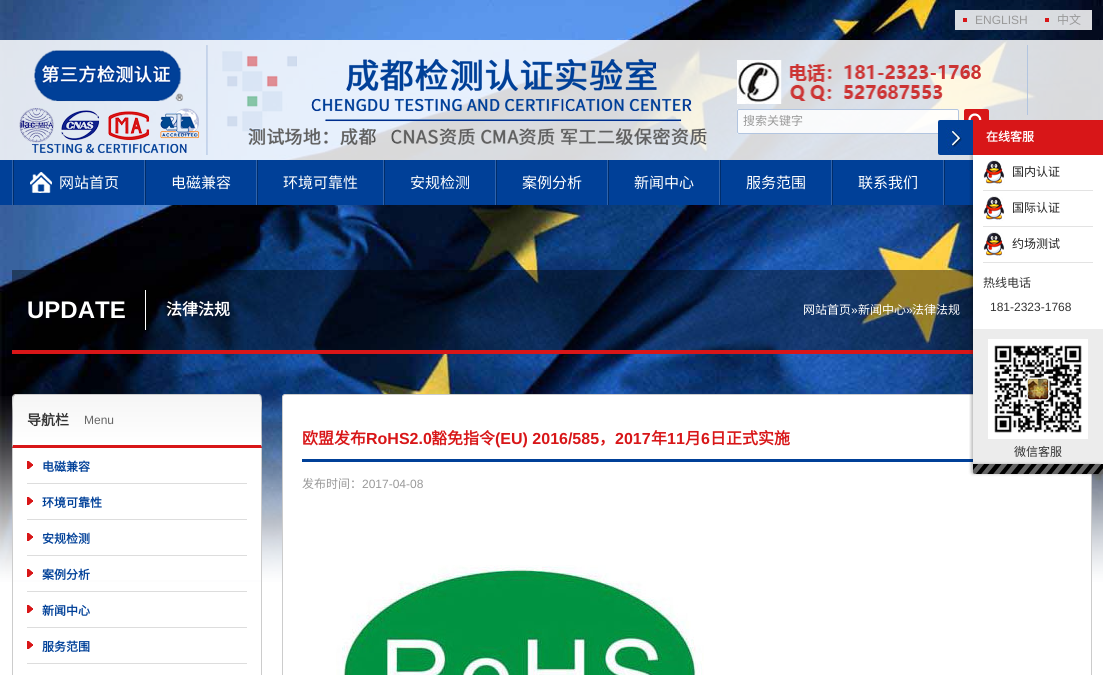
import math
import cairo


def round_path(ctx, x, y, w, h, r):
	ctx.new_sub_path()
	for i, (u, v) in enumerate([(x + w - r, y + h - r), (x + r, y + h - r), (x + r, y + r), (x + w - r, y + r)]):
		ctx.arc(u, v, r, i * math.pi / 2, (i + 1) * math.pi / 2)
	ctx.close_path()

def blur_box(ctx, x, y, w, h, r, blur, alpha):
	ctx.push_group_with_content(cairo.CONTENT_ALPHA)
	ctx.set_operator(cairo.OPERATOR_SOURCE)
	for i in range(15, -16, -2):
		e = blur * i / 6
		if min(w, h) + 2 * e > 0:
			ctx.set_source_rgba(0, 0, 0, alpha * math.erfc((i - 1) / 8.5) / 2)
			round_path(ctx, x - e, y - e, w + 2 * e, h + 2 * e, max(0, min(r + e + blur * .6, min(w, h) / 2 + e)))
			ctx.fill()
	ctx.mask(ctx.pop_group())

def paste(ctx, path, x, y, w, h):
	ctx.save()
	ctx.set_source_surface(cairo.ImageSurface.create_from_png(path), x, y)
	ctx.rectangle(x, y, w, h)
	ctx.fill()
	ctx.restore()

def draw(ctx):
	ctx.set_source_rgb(1, 1, 1)
	ctx.paint()
	paste(ctx, 'media/1.png', 0, 0, 1103, 582)
	ctx.set_source_rgba(1, 1, 1, 0.85)
	ctx.rectangle(955, 10, 137, 20)
	ctx.fill()
	ctx.set_source_rgb(0.847, 0.086, 0.094)
	ctx.rectangle(963, 18, 4, 4)
	ctx.fill()
	ctx.select_font_face('Liberation Sans')
	ctx.set_font_size(12)
	ctx.set_source_rgb(0.6, 0.6, 0.6)
	ctx.move_to(975, 24)
	ctx.show_text('ENGLISH')
	ctx.set_source_rgb(0.847, 0.086, 0.094)
	ctx.rectangle(1045, 18, 4, 4)
	ctx.fill()
	ctx.select_font_face('Noto Sans CJK SC')
	ctx.set_source_rgb(0.6, 0.6, 0.6)
	ctx.move_to(1057, 24)
	ctx.show_text('中文')
	ctx.set_source_rgba(1, 1, 1, 0.85)
	ctx.rectangle(0, 40, 1103, 120)
	ctx.fill()
	paste(ctx, 'media/2.png', 19, 45, 688, 110)
	ctx.set_source_rgb(0.698, 0.773, 0.878)
	ctx.rectangle(1027, 45, 1, 70)
	ctx.fill()
	paste(ctx, 'media/3.png', 737, 60, 244, 44)
	ctx.set_source_rgba(1, 1, 1, 0.85)
	ctx.rectangle(737, 109, 222, 25)
	ctx.fill()
	round_path(ctx, 737.5, 109.5, 221, 24, 1.5)
	ctx.set_source_rgb(0.698, 0.773, 0.878)
	ctx.set_line_width(1)
	ctx.stroke()
	ctx.set_source_rgb(0.6, 0.6, 0.6)
	ctx.move_to(743, 125)
	ctx.show_text('搜索关键字')
	ctx.set_source_rgb(0.847, 0.086, 0.094)
	round_path(ctx, 964, 109, 25, 25, 2)
	ctx.fill()
	paste(ctx, 'media/4.png', 968, 113, 14, 7)
	ctx.set_source_rgb(0, 0.251, 0.596)
	ctx.rectangle(0, 160, 973, 45)
	ctx.fill()
	ctx.set_source_rgb(0, 0.176, 0.42)
	ctx.rectangle(944, 160, 1, 45)
	ctx.fill()
	ctx.set_source_rgb(0.184, 0.388, 0.671)
	ctx.rectangle(12, 160, 1, 45)
	ctx.fill()
	paste(ctx, 'media/5.png', 30, 172, 22, 21)
	ctx.rectangle(144, 160, 1, 45)
	ctx.fill()
	ctx.set_source_rgb(0, 0.176, 0.42)
	ctx.rectangle(13, 160, 1, 45)
	ctx.fill()
	ctx.set_font_size(15)
	ctx.set_source_rgb(1, 1, 1)
	ctx.move_to(59, 188)
	ctx.show_text('网站首页')
	ctx.set_source_rgb(0.184, 0.388, 0.671)
	ctx.rectangle(256, 160, 1, 45)
	ctx.fill()
	ctx.set_source_rgb(0, 0.176, 0.42)
	ctx.rectangle(145, 160, 1, 45)
	ctx.fill()
	ctx.set_source_rgb(1, 1, 1)
	ctx.move_to(171, 188)
	ctx.show_text('电磁兼容')
	ctx.set_source_rgb(0.184, 0.388, 0.671)
	ctx.rectangle(383, 160, 1, 45)
	ctx.fill()
	ctx.set_source_rgb(0, 0.176, 0.42)
	ctx.rectangle(257, 160, 1, 45)
	ctx.fill()
	ctx.set_source_rgb(1, 1, 1)
	ctx.move_to(283, 188)
	ctx.show_text('环境可靠性')
	ctx.set_source_rgb(0.184, 0.388, 0.671)
	ctx.rectangle(495, 160, 1, 45)
	ctx.fill()
	ctx.set_source_rgb(0, 0.176, 0.42)
	ctx.rectangle(384, 160, 1, 45)
	ctx.fill()
	ctx.set_source_rgb(1, 1, 1)
	ctx.move_to(410, 188)
	ctx.show_text('安规检测')
	ctx.set_source_rgb(0.184, 0.388, 0.671)
	ctx.rectangle(607, 160, 1, 45)
	ctx.fill()
	ctx.set_source_rgb(0, 0.176, 0.42)
	ctx.rectangle(496, 160, 1, 45)
	ctx.fill()
	ctx.set_source_rgb(1, 1, 1)
	ctx.move_to(522, 188)
	ctx.show_text('案例分析')
	ctx.set_source_rgb(0.184, 0.388, 0.671)
	ctx.rectangle(719, 160, 1, 45)
	ctx.fill()
	ctx.set_source_rgb(0, 0.176, 0.42)
	ctx.rectangle(608, 160, 1, 45)
	ctx.fill()
	ctx.set_source_rgb(1, 1, 1)
	ctx.move_to(634, 188)
	ctx.show_text('新闻中心')
	ctx.set_source_rgb(0.184, 0.388, 0.671)
	ctx.rectangle(831, 160, 1, 45)
	ctx.fill()
	ctx.set_source_rgb(0, 0.176, 0.42)
	ctx.rectangle(720, 160, 1, 45)
	ctx.fill()
	ctx.set_source_rgb(1, 1, 1)
	ctx.move_to(746, 188)
	ctx.show_text('服务范围')
	ctx.set_source_rgb(0.184, 0.388, 0.671)
	ctx.rectangle(943, 160, 1, 45)
	ctx.fill()
	ctx.set_source_rgb(0, 0.176, 0.42)
	ctx.rectangle(832, 160, 1, 45)
	ctx.fill()
	ctx.set_source_rgb(1, 1, 1)
	ctx.move_to(858, 188)
	ctx.show_text('联系我们')
	paste(ctx, 'media/6.png', 0, 396, 1103, 204)
	paste(ctx, 'media/7.png', 938, 120, 35, 35)
	round_path(ctx, 282.5, 394.5, 809, 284, 2.5)
	ctx.fill_preserve()
	ctx.set_source_rgb(0.8, 0.8, 0.8)
	ctx.stroke()
	ctx.set_source_rgb(1, 1, 1)
	ctx.rectangle(973, 155, 130, 319)
	ctx.fill()
	ctx.set_source_rgba(0, 0, 0, 0.4)
	ctx.rectangle(12, 270, 961, 80)
	ctx.fill()
	ctx.set_source_rgb(0.847, 0.086, 0.094)
	ctx.rectangle(12, 350, 961, 4)
	ctx.fill()
	ctx.set_source_rgb(0, 0.251, 0.596)
	ctx.rectangle(302, 459, 671, 3)
	ctx.fill()
	ctx.save()
	ctx.rectangle(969, 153, 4, 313)
	ctx.clip()
	ctx.set_source_rgb(0, 0, 0)
	blur_box(ctx, 971, 155, 130, 309, 0, 1.5, 0.25)
	ctx.restore()
	ctx.set_source_rgb(0.847, 0.086, 0.094)
	ctx.rectangle(973, 120, 130, 35)
	ctx.fill()
	ctx.select_font_face('Noto Sans CJK SC', cairo.FONT_SLANT_NORMAL, cairo.FONT_WEIGHT_BOLD)
	ctx.set_font_size(12)
	ctx.set_source_rgb(1, 1, 1)
	ctx.move_to(986, 141)
	ctx.show_text('在线客服')
	ctx.set_source_rgb(0.89, 0.89, 0.89)
	ctx.rectangle(983, 190, 110, 1)
	ctx.fill()
	paste(ctx, 'media/8.png', 983, 160, 22, 25)
	ctx.select_font_face('Noto Sans CJK SC')
	ctx.set_source_rgb(0.133, 0.133, 0.133)
	ctx.move_to(1012, 176)
	ctx.show_text('国内认证')
	ctx.set_source_rgb(0.89, 0.89, 0.89)
	ctx.rectangle(983, 226, 110, 1)
	ctx.fill()
	paste(ctx, 'media/8.png', 983, 196, 22, 25)
	ctx.set_source_rgb(0.133, 0.133, 0.133)
	ctx.move_to(1012, 212)
	ctx.show_text('国际认证')
	ctx.set_source_rgb(0.89, 0.89, 0.89)
	ctx.rectangle(983, 262, 110, 1)
	ctx.fill()
	paste(ctx, 'media/8.png', 983, 232, 22, 25)
	ctx.set_source_rgb(0.133, 0.133, 0.133)
	ctx.move_to(1012, 248)
	ctx.show_text('约场测试')
	ctx.set_source_rgb(0.2, 0.2, 0.2)
	ctx.move_to(983, 287)
	ctx.show_text('热线电话')
	ctx.select_font_face('Liberation Sans')
	ctx.move_to(990, 311)
	ctx.show_text('181-2323-1768')
	ctx.set_source_rgb(0.922, 0.922, 0.922)
	ctx.rectangle(973, 329, 130, 135)
	ctx.fill()
	paste(ctx, 'media/9.png', 988, 339, 100, 100)
	ctx.select_font_face('Noto Sans CJK SC')
	ctx.set_source_rgb(0.2, 0.2, 0.2)
	ctx.move_to(1014, 456)
	ctx.show_text('微信客服')
	ctx.set_source_rgb(0, 0, 0)
	blur_box(ctx, 971, 464, 130, 10, 2, 1.5, 0.25)
	paste(ctx, 'media/10.png', 973, 464, 130, 10)
	ctx.set_source_rgb(1, 1, 1)
	ctx.rectangle(145, 290, 1, 40)
	ctx.fill()
	ctx.select_font_face('Liberation Sans', cairo.FONT_SLANT_NORMAL, cairo.FONT_WEIGHT_BOLD)
	ctx.set_font_size(24)
	ctx.move_to(27, 318)
	ctx.show_text('UPDATE')
	ctx.select_font_face('Noto Sans CJK SC', cairo.FONT_SLANT_NORMAL, cairo.FONT_WEIGHT_BOLD)
	ctx.set_font_size(16)
	ctx.move_to(166, 315)
	ctx.show_text('法律法规')
	ctx.select_font_face('Noto Sans CJK SC')
	ctx.set_font_size(12)
	ctx.move_to(803, 314)
	ctx.show_text('网站首页')
	ctx.select_font_face('Liberation Sans')
	ctx.move_to(851, 314)
	ctx.show_text('»')
	ctx.select_font_face('Noto Sans CJK SC')
	ctx.move_to(858, 314)
	ctx.show_text('新闻中心')
	ctx.select_font_face('Liberation Sans')
	ctx.move_to(906, 314)
	ctx.show_text('»')
	ctx.select_font_face('Noto Sans CJK SC')
	ctx.move_to(912, 314)
	ctx.show_text('法律法规')
	gradient = cairo.LinearGradient(13, 395, 13, 445)
	gradient.add_color_stop_rgba(0, 0.961, 0.961, 0.961, 1)
	gradient.add_color_stop_rgba(1, 1, 1, 1, 1)
	ctx.set_source(gradient)
	ctx.new_path()
	ctx.move_to(15, 395)
	ctx.line_to(259, 395)
	ctx.curve_to(260, 395, 261, 396, 261, 397)
	ctx.line_to(261, 445)
	ctx.line_to(13, 445)
	ctx.line_to(13, 397)
	ctx.curve_to(13, 396, 14, 395, 15, 395)
	ctx.close_path()
	ctx.fill()
	ctx.set_source_rgb(0.8, 0.8, 0.8)
	ctx.new_path()
	ctx.move_to(15, 394)
	ctx.line_to(13, 395)
	ctx.line_to(14, 396)
	ctx.line_to(15, 395)
	ctx.line_to(259, 395)
	ctx.line_to(260, 396)
	ctx.line_to(261, 395)
	ctx.line_to(259, 394)
	ctx.close_path()
	ctx.fill()
	ctx.save()
	ctx.rectangle(12, 394, 250, 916)
	ctx.clip()
	ctx.new_path()
	ctx.move_to(262, 448)
	ctx.curve_to(262, 442, 263, 397, 261, 395)
	ctx.line_to(260, 396)
	ctx.curve_to(262, 397, 261, 439, 261, 445)
	ctx.close_path()
	ctx.fill()
	ctx.restore()
	ctx.set_source_rgb(0.847, 0.086, 0.094)
	ctx.new_path()
	ctx.move_to(262, 448)
	ctx.line_to(261, 445)
	ctx.line_to(13, 445)
	ctx.line_to(12, 448)
	ctx.close_path()
	ctx.fill()
	ctx.set_source_rgb(0.8, 0.8, 0.8)
	ctx.new_path()
	ctx.move_to(12, 448)
	ctx.line_to(13, 445)
	ctx.curve_to(13, 439, 12, 397, 14, 396)
	ctx.line_to(13, 395)
	ctx.line_to(12, 397)
	ctx.close_path()
	ctx.fill()
	ctx.select_font_face('Noto Sans CJK SC', cairo.FONT_SLANT_NORMAL, cairo.FONT_WEIGHT_BOLD)
	ctx.set_font_size(14)
	ctx.set_source_rgb(0.2, 0.2, 0.2)
	ctx.move_to(27, 425)
	ctx.show_text('导航栏')
	ctx.select_font_face('Liberation Sans')
	ctx.set_font_size(12)
	ctx.set_source_rgb(0.4, 0.4, 0.4)
	ctx.move_to(84, 424)
	ctx.show_text('Menu')
	ctx.set_source_rgb(1, 1, 1)
	ctx.rectangle(13, 448, 248, 132)
	ctx.fill()
	ctx.set_source_rgb(0.8, 0.8, 0.8)
	ctx.set_fill_rule(cairo.FILL_RULE_EVEN_ODD)
	ctx.new_path()
	ctx.move_to(12, 448)
	ctx.line_to(262, 448)
	ctx.line_to(262, 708)
	ctx.curve_to(262, 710, 261, 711, 259, 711)
	ctx.line_to(15, 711)
	ctx.curve_to(13, 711, 12, 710, 12, 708)
	ctx.close_path()
	ctx.move_to(13, 448)
	ctx.line_to(261, 448)
	ctx.line_to(261, 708)
	ctx.curve_to(261, 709, 260, 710, 259, 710)
	ctx.line_to(15, 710)
	ctx.curve_to(14, 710, 13, 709, 13, 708)
	ctx.close_path()
	ctx.fill()
	paste(ctx, 'media/11.png', 27, 461, 6, 8)
	ctx.set_source_rgb(0.867, 0.867, 0.867)
	ctx.rectangle(27, 483, 220, 1)
	ctx.fill()
	ctx.select_font_face('Noto Sans CJK SC', cairo.FONT_SLANT_NORMAL, cairo.FONT_WEIGHT_BOLD)
	ctx.set_source_rgb(0, 0.251, 0.596)
	ctx.move_to(42, 471)
	ctx.show_text('电磁兼容')
	paste(ctx, 'media/11.png', 27, 497, 6, 8)
	ctx.set_source_rgb(0.867, 0.867, 0.867)
	ctx.rectangle(27, 519, 220, 1)
	ctx.fill()
	ctx.set_source_rgb(0, 0.251, 0.596)
	ctx.move_to(42, 507)
	ctx.show_text('环境可靠性')
	paste(ctx, 'media/11.png', 27, 533, 6, 8)
	ctx.set_source_rgb(0.867, 0.867, 0.867)
	ctx.rectangle(27, 555, 220, 1)
	ctx.fill()
	ctx.set_source_rgb(0, 0.251, 0.596)
	ctx.move_to(42, 543)
	ctx.show_text('安规检测')
	paste(ctx, 'media/11.png', 27, 569, 6, 8)
	ctx.set_source_rgb(0.867, 0.867, 0.867)
	ctx.rectangle(27, 591, 220, 1)
	ctx.fill()
	ctx.set_source_rgb(0, 0.251, 0.596)
	ctx.move_to(42, 579)
	ctx.show_text('案例分析')
	paste(ctx, 'media/11.png', 27, 605, 6, 8)
	ctx.set_source_rgb(0.867, 0.867, 0.867)
	ctx.rectangle(27, 627, 220, 1)
	ctx.fill()
	ctx.set_source_rgb(0, 0.251, 0.596)
	ctx.move_to(42, 615)
	ctx.show_text('新闻中心')
	paste(ctx, 'media/11.png', 27, 641, 6, 8)
	ctx.set_source_rgb(0.867, 0.867, 0.867)
	ctx.rectangle(27, 663, 220, 1)
	ctx.fill()
	ctx.set_source_rgb(0, 0.251, 0.596)
	ctx.move_to(42, 651)
	ctx.show_text('服务范围')
	ctx.set_font_size(16)
	ctx.set_source_rgb(0.847, 0.086, 0.094)
	ctx.move_to(302, 444)
	ctx.show_text('欧盟发布')
	ctx.select_font_face('Liberation Sans', cairo.FONT_SLANT_NORMAL, cairo.FONT_WEIGHT_BOLD)
	ctx.move_to(366, 444)
	ctx.show_text('RoHS2.0')
	ctx.select_font_face('Noto Sans CJK SC', cairo.FONT_SLANT_NORMAL, cairo.FONT_WEIGHT_BOLD)
	ctx.move_to(431, 444)
	ctx.show_text('豁免指令')
	ctx.select_font_face('Liberation Sans', cairo.FONT_SLANT_NORMAL, cairo.FONT_WEIGHT_BOLD)
	ctx.move_to(495, 444)
	ctx.show_text('(EU) 2016/585')
	ctx.select_font_face('Noto Sans CJK SC', cairo.FONT_SLANT_NORMAL, cairo.FONT_WEIGHT_BOLD)
	ctx.move_to(599, 444)
	ctx.show_text('，')
	ctx.select_font_face('Liberation Sans', cairo.FONT_SLANT_NORMAL, cairo.FONT_WEIGHT_BOLD)
	ctx.move_to(615, 444)
	ctx.show_text('2017')
	ctx.select_font_face('Noto Sans CJK SC', cairo.FONT_SLANT_NORMAL, cairo.FONT_WEIGHT_BOLD)
	ctx.move_to(651, 444)
	ctx.show_text('年')
	ctx.select_font_face('Liberation Sans', cairo.FONT_SLANT_NORMAL, cairo.FONT_WEIGHT_BOLD)
	ctx.move_to(667, 444)
	ctx.show_text('11')
	ctx.select_font_face('Noto Sans CJK SC', cairo.FONT_SLANT_NORMAL, cairo.FONT_WEIGHT_BOLD)
	ctx.move_to(685, 444)
	ctx.show_text('月')
	ctx.select_font_face('Liberation Sans', cairo.FONT_SLANT_NORMAL, cairo.FONT_WEIGHT_BOLD)
	ctx.move_to(701, 444)
	ctx.show_text('6')
	ctx.select_font_face('Noto Sans CJK SC', cairo.FONT_SLANT_NORMAL, cairo.FONT_WEIGHT_BOLD)
	ctx.move_to(710, 444)
	ctx.show_text('日正式实施')
	ctx.select_font_face('Noto Sans CJK SC')
	ctx.set_font_size(12)
	ctx.set_source_rgb(0.6, 0.6, 0.6)
	ctx.move_to(302, 488)
	ctx.show_text('发布时间：')
	ctx.select_font_face('Liberation Sans')
	ctx.move_to(362, 488)
	ctx.show_text('2017-04-08')
	paste(ctx, 'media/12.png', 336, 565, 368, 110)


surface = cairo.ImageSurface(cairo.FORMAT_RGB24, 1103, 675)
ctx = cairo.Context(surface)
options = cairo.FontOptions()
options.set_hint_metrics(cairo.HINT_METRICS_OFF)
options.set_hint_style(cairo.HINT_STYLE_NONE)
ctx.set_font_options(options)
ctx.set_miter_limit(4)
draw(ctx)
surface.write_to_png('image.png')
